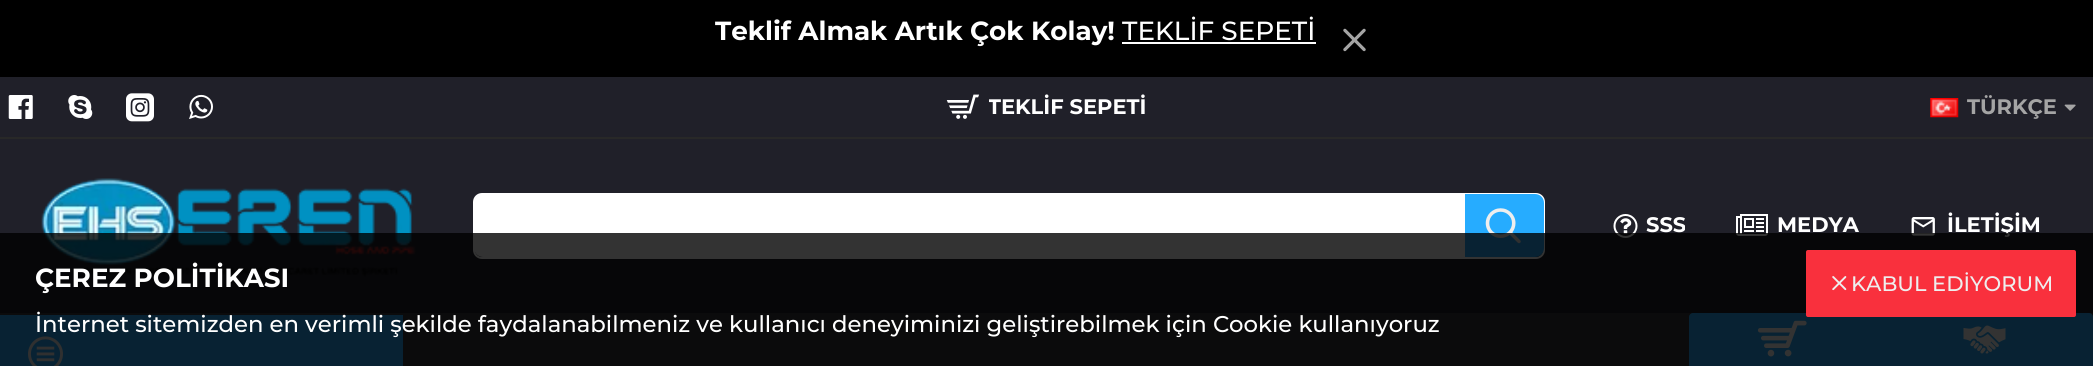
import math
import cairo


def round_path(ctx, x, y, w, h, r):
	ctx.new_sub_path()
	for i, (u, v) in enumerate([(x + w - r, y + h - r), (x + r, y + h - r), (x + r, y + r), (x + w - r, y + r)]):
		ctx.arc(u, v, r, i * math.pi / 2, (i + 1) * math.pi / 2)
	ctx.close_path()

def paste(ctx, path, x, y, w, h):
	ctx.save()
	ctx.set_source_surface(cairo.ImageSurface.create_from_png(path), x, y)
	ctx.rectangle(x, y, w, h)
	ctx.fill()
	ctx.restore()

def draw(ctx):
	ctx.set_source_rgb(0, 0, 0)
	ctx.paint()
	ctx.select_font_face('Montserrat', cairo.FONT_SLANT_NORMAL, cairo.FONT_WEIGHT_BOLD)
	ctx.set_font_size(26.25)
	ctx.set_source_rgb(1, 1, 1)
	ctx.move_to(715, 40)
	ctx.show_text('Teklif Almak Artık Çok Kolay!')
	ctx.select_font_face('Montserrat Medium')
	ctx.move_to(1122, 40)
	ctx.show_text('TEKLİF SEPETİ')
	ctx.rectangle(1122, 42, 194, 2)
	ctx.fill()
	paste(ctx, 'media/1.png', 1343, 28, 23, 24)
	ctx.set_source_rgb(0.125, 0.125, 0.161)
	ctx.rectangle(0, 77, 2093, 236)
	ctx.fill()
	paste(ctx, 'media/2.png', 8, 95, 25, 24)
	paste(ctx, 'media/3.png', 68, 95, 25, 24)
	paste(ctx, 'media/4.png', 126, 93, 28, 29)
	paste(ctx, 'media/5.png', 189, 94, 24, 25)
	paste(ctx, 'media/6.png', 946, 94, 34, 25)
	ctx.save()
	ctx.rectangle(989, 91, 157, 32)
	ctx.clip()
	ctx.select_font_face('Montserrat', cairo.FONT_SLANT_NORMAL, cairo.FONT_WEIGHT_BOLD)
	ctx.set_font_size(21)
	ctx.set_source_rgb(1, 1, 1)
	ctx.move_to(988, 114)
	ctx.show_text('TEKLİF SEPETİ')
	ctx.restore()
	paste(ctx, 'media/7.png', 1930, 98, 29, 20)
	ctx.select_font_face('Montserrat', cairo.FONT_SLANT_NORMAL, cairo.FONT_WEIGHT_BOLD)
	ctx.set_font_size(21)
	ctx.set_source_rgb(0.647, 0.647, 0.647)
	ctx.move_to(1967, 114)
	ctx.show_text('TÜRKÇE')
	paste(ctx, 'media/8.png', 2064, 104, 12, 7)
	paste(ctx, 'media/9.png', 41, 178, 375, 99)
	round_path(ctx, 474, 194, 1070, 64, 8)
	ctx.set_source_rgb(1, 1, 1)
	ctx.stroke()
	ctx.new_path()
	ctx.move_to(483, 194)
	ctx.line_to(1465, 194)
	ctx.line_to(1465, 257)
	ctx.line_to(483, 257)
	ctx.curve_to(478, 257, 474, 253, 474, 248)
	ctx.line_to(474, 203)
	ctx.curve_to(474, 198, 478, 194, 483, 194)
	ctx.close_path()
	ctx.fill()
	ctx.set_source_rgb(0.149, 0.675, 1)
	ctx.new_path()
	ctx.move_to(1465, 194)
	ctx.line_to(1535, 194)
	ctx.curve_to(1540, 194, 1544, 198, 1544, 203)
	ctx.line_to(1544, 248)
	ctx.curve_to(1544, 253, 1540, 257, 1535, 257)
	ctx.line_to(1465, 257)
	ctx.close_path()
	ctx.fill()
	paste(ctx, 'media/10.png', 1485, 208, 36, 36)
	paste(ctx, 'media/11.png', 1613, 214, 25, 24)
	ctx.save()
	ctx.rectangle(1645, 210, 40, 32)
	ctx.clip()
	ctx.set_source_rgb(1, 1, 1)
	ctx.move_to(1646, 232)
	ctx.show_text('SSS')
	ctx.restore()
	paste(ctx, 'media/12.png', 1736, 214, 32, 22)
	ctx.set_source_rgb(1, 1, 1)
	ctx.move_to(1777, 232)
	ctx.show_text('MEDYA')
	paste(ctx, 'media/13.png', 1911, 217, 24, 19)
	ctx.move_to(1947, 232)
	ctx.show_text('İLETİŞİM')
	ctx.set_source_rgb(0.208, 0.208, 0.235)
	ctx.rectangle(0, 313, 2093, 53)
	ctx.fill()
	ctx.set_source_rgb(0.149, 0.675, 1)
	ctx.rectangle(0, 315, 403, 51)
	ctx.fill()
	paste(ctx, 'media/14.png', 28, 336, 35, 30)
	round_path(ctx, 1689, 313, 185, 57, 4)
	ctx.fill()
	paste(ctx, 'media/15.png', 1757, 320, 50, 37)
	round_path(ctx, 1874, 313, 219, 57, 4)
	ctx.fill()
	paste(ctx, 'media/16.png', 1963, 325, 43, 29)
	ctx.set_source_rgb(0.157, 0.157, 0.157)
	ctx.rectangle(0, 137, 2093, 2)
	ctx.fill()
	ctx.set_source_rgba(0, 0, 0, 0.8)
	ctx.rectangle(0, 233, 2093, 133)
	ctx.fill()
	ctx.set_font_size(26.25)
	ctx.set_source_rgb(1, 1, 1)
	ctx.move_to(35, 287)
	ctx.show_text('ÇEREZ POLİTİKASI')
	ctx.select_font_face('Montserrat Medium')
	ctx.set_font_size(22.75)
	ctx.move_to(35, 332)
	ctx.show_text('İnternet sitemizden en verimli şekilde faydalanabilmeniz ve kullanıcı deneyiminizi geliştirebilmek için Cookie kullanıyoruz')
	ctx.set_source_rgb(0.973, 0.188, 0.239)
	round_path(ctx, 1806, 250, 270, 67, 2)
	ctx.fill()
	paste(ctx, 'media/17.png', 1832, 276, 15, 15)
	ctx.set_font_size(21)
	ctx.set_source_rgb(0.933, 0.933, 0.933)
	ctx.move_to(1851, 291)
	ctx.show_text('KABUL EDİYORUM')


surface = cairo.ImageSurface(cairo.FORMAT_RGB24, 2093, 366)
ctx = cairo.Context(surface)
options = cairo.FontOptions()
options.set_hint_metrics(cairo.HINT_METRICS_OFF)
options.set_hint_style(cairo.HINT_STYLE_NONE)
ctx.set_font_options(options)
ctx.set_miter_limit(4)
draw(ctx)
surface.write_to_png('image.png')
